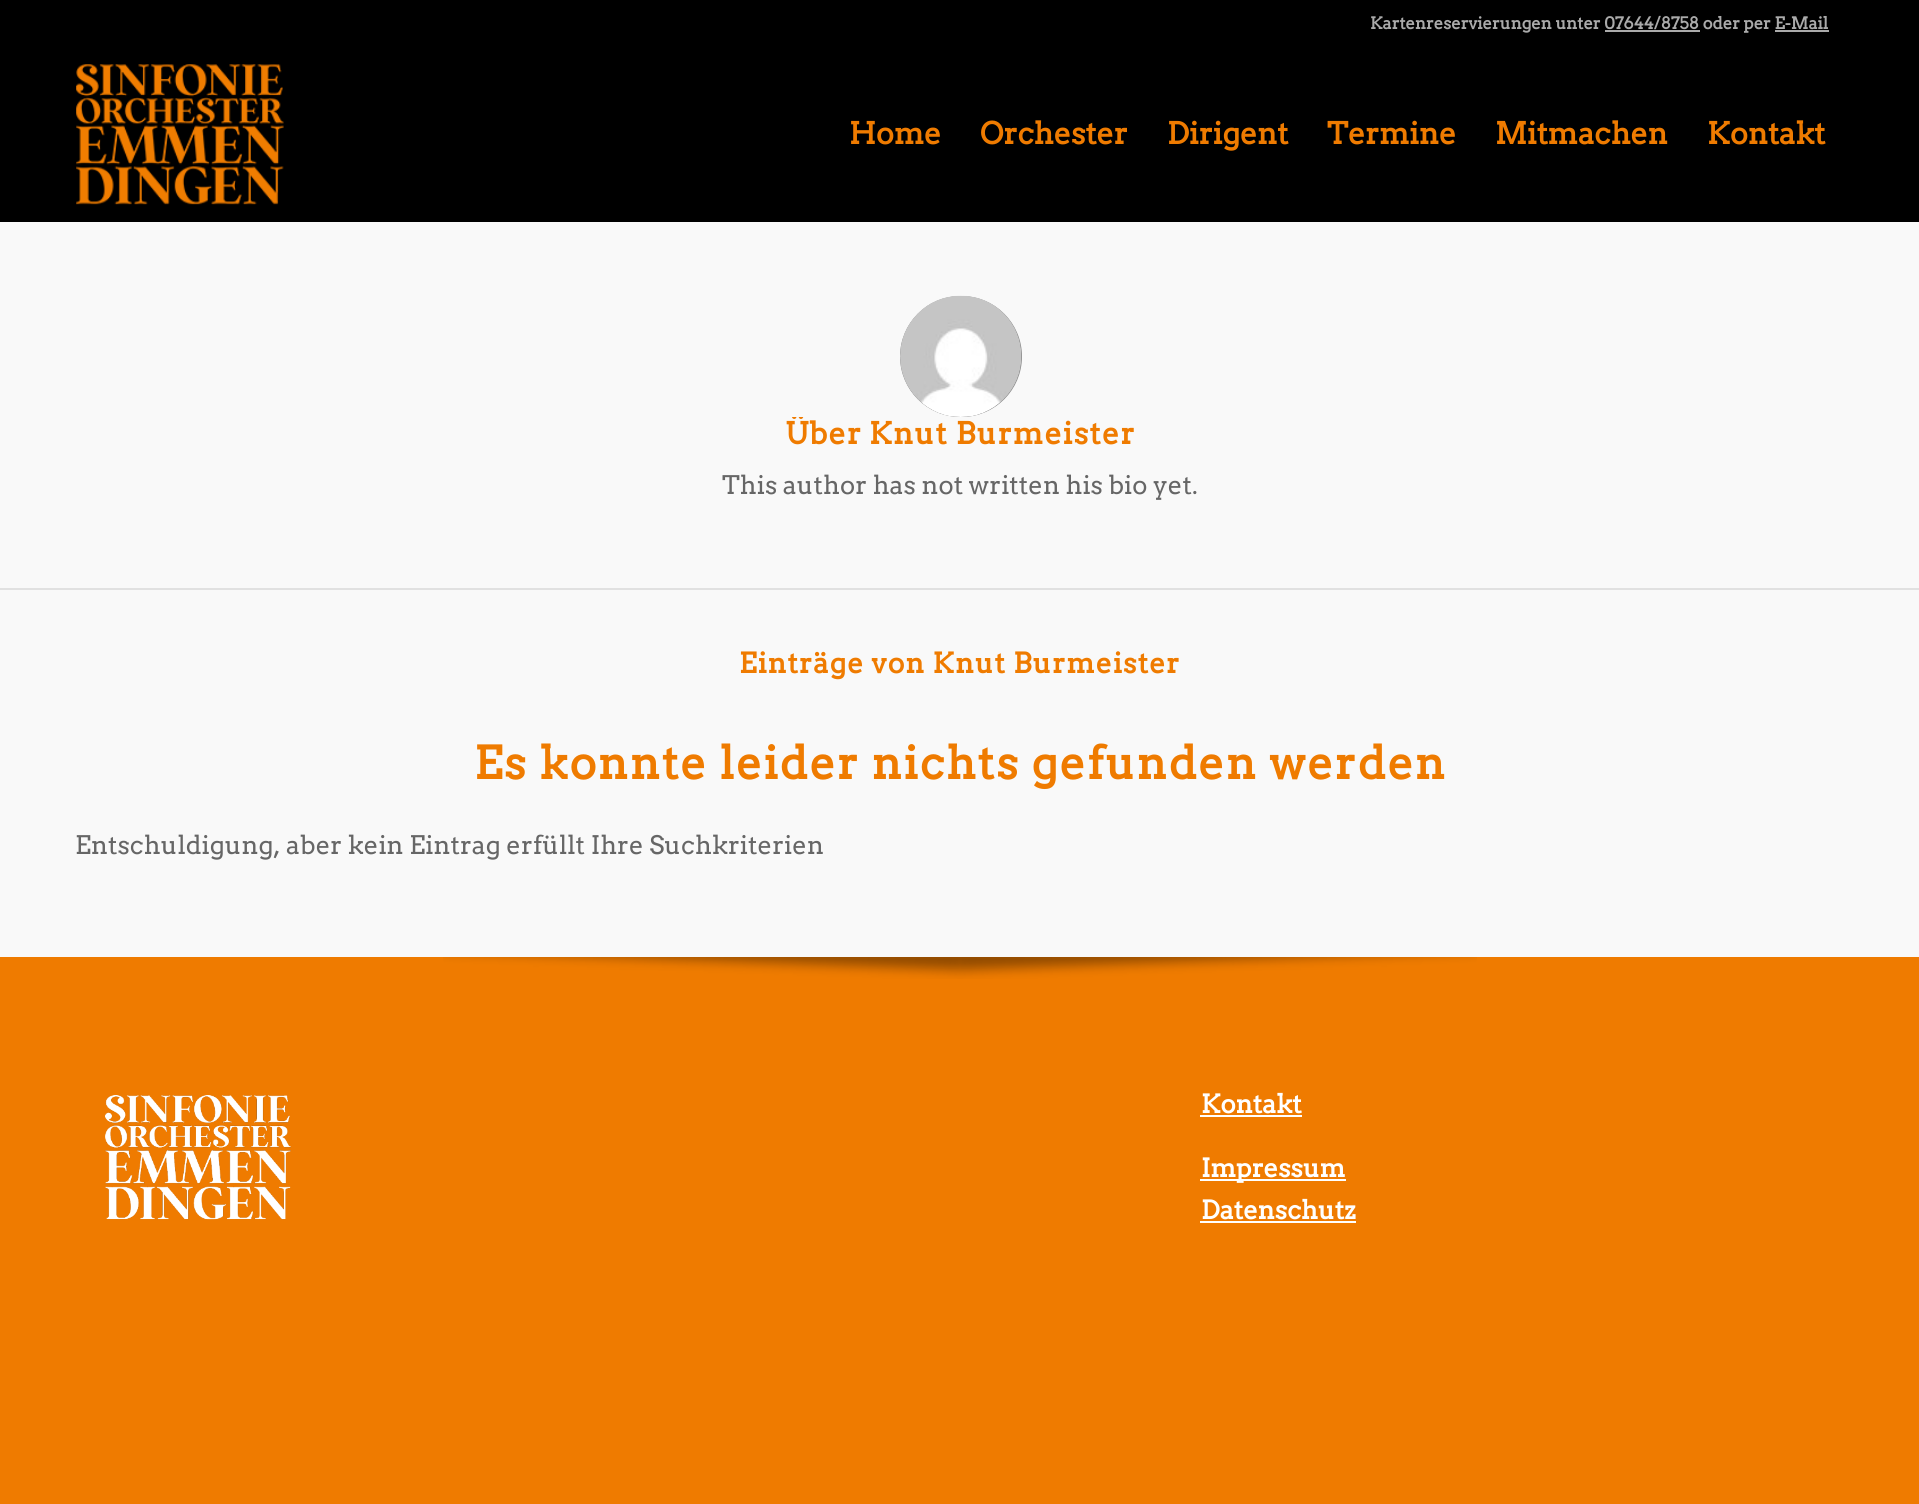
import math
import cairo


def write_spaced(ctx, x, y, s, letter, word):
	ctx.move_to(x, y)
	for ch in s:
		ctx.show_text(ch)
		ctx.rel_move_to(letter + word * (ch == ' '), 0)

def round_path(ctx, x, y, w, h, r):
	ctx.new_sub_path()
	for i, (u, v) in enumerate([(x + w - r, y + h - r), (x + r, y + h - r), (x + r, y + r), (x + w - r, y + r)]):
		ctx.arc(u, v, r, i * math.pi / 2, (i + 1) * math.pi / 2)
	ctx.close_path()

def paste(ctx, path, x, y, w, h):
	ctx.save()
	ctx.set_source_surface(cairo.ImageSurface.create_from_png(path), x, y)
	ctx.rectangle(x, y, w, h)
	ctx.fill()
	ctx.restore()

def draw(ctx):
	ctx.set_source_rgb(0.937, 0.482, 0)
	ctx.paint()
	ctx.set_source_rgb(0, 0, 0)
	ctx.rectangle(0, 0, 1919, 222)
	ctx.fill()
	ctx.select_font_face('Arvo', cairo.FONT_SLANT_NORMAL, cairo.FONT_WEIGHT_BOLD)
	ctx.set_font_size(16.5)
	ctx.set_source_rgb(0.667, 0.667, 0.667)
	ctx.move_to(1370, 29)
	ctx.show_text('Kartenreservierungen unter 07644/8758 oder per E-Mail')
	ctx.rectangle(1605, 30, 95, 2)
	ctx.fill()
	ctx.rectangle(1775, 30, 54, 2)
	ctx.fill()
	paste(ctx, 'media/1.png', 76, 64, 208, 141)
	ctx.set_font_size(30)
	ctx.set_source_rgb(0.937, 0.482, 0)
	for x, y, s in [
		(849, 144, 'Home'),
		(980, 144, 'Orchester'),
		(1167, 144, 'Dirigent'),
		(1327, 144, 'Termine'),
		(1495, 144, 'Mitmachen'),
		(1707, 144, 'Kontakt'),
	]:
		ctx.move_to(x, y)
		ctx.show_text(s)
	ctx.set_source_rgb(0.973, 0.973, 0.973)
	ctx.rectangle(0, 222, 1919, 735)
	ctx.fill()
	ctx.set_source_rgb(0.553, 0.553, 0.553)
	round_path(ctx, 900, 296, 122, 121, 60.5)
	ctx.fill()
	paste(ctx, 'media/2.png', 900, 295, 122, 122)
	ctx.save()
	ctx.rectangle(75, 417, 1770, 105)
	ctx.clip()
	ctx.set_source_rgb(0.937, 0.482, 0)
	write_spaced(ctx, 785, 444, 'Über', 1.25, 0)
	ctx.restore()
	ctx.set_source_rgb(0.937, 0.482, 0)
	write_spaced(ctx, 869, 444, 'Knut Burmeister', 1.25, 0)
	ctx.select_font_face('Arvo')
	ctx.set_font_size(25.5)
	ctx.set_source_rgb(0.4, 0.4, 0.4)
	ctx.move_to(722, 494)
	ctx.show_text('This author has not written his bio yet.')
	ctx.set_source_rgb(0.882, 0.882, 0.882)
	ctx.rectangle(0, 588, 1919, 2)
	ctx.fill()
	ctx.select_font_face('Arvo', cairo.FONT_SLANT_NORMAL, cairo.FONT_WEIGHT_BOLD)
	ctx.set_font_size(28)
	ctx.set_source_rgb(0.937, 0.482, 0)
	write_spaced(ctx, 739, 673, 'Einträge von Knut Burmeister', 1.1, 0)
	ctx.set_font_size(45)
	write_spaced(ctx, 474, 779, 'Es konnte leider nichts gefunden werden', 1.8, 0)
	ctx.select_font_face('Arvo')
	ctx.set_font_size(25.5)
	ctx.set_source_rgb(0.4, 0.4, 0.4)
	ctx.move_to(75, 854)
	ctx.show_text('Entschuldigung, aber kein Eintrag erfüllt Ihre Suchkriterien')
	paste(ctx, 'media/3.png', 443, 957, 1034, 22)
	paste(ctx, 'media/4.png', 105, 1095, 186, 125)
	ctx.select_font_face('Arvo', cairo.FONT_SLANT_NORMAL, cairo.FONT_WEIGHT_BOLD)
	ctx.set_source_rgb(1, 1, 1)
	ctx.move_to(1201, 1113)
	ctx.show_text('Kontakt')
	ctx.rectangle(1200, 1115, 102, 2)
	ctx.fill()
	ctx.rectangle(1200, 1179, 146, 2)
	ctx.fill()
	ctx.move_to(1201, 1177)
	ctx.show_text('Impressum')
	ctx.move_to(1201, 1219)
	ctx.show_text('Datenschutz')
	ctx.rectangle(1200, 1221, 156, 2)
	ctx.fill()


surface = cairo.ImageSurface(cairo.FORMAT_RGB24, 1919, 1504)
ctx = cairo.Context(surface)
options = cairo.FontOptions()
options.set_hint_metrics(cairo.HINT_METRICS_OFF)
options.set_hint_style(cairo.HINT_STYLE_NONE)
ctx.set_font_options(options)
ctx.set_miter_limit(4)
draw(ctx)
surface.write_to_png('image.png')
